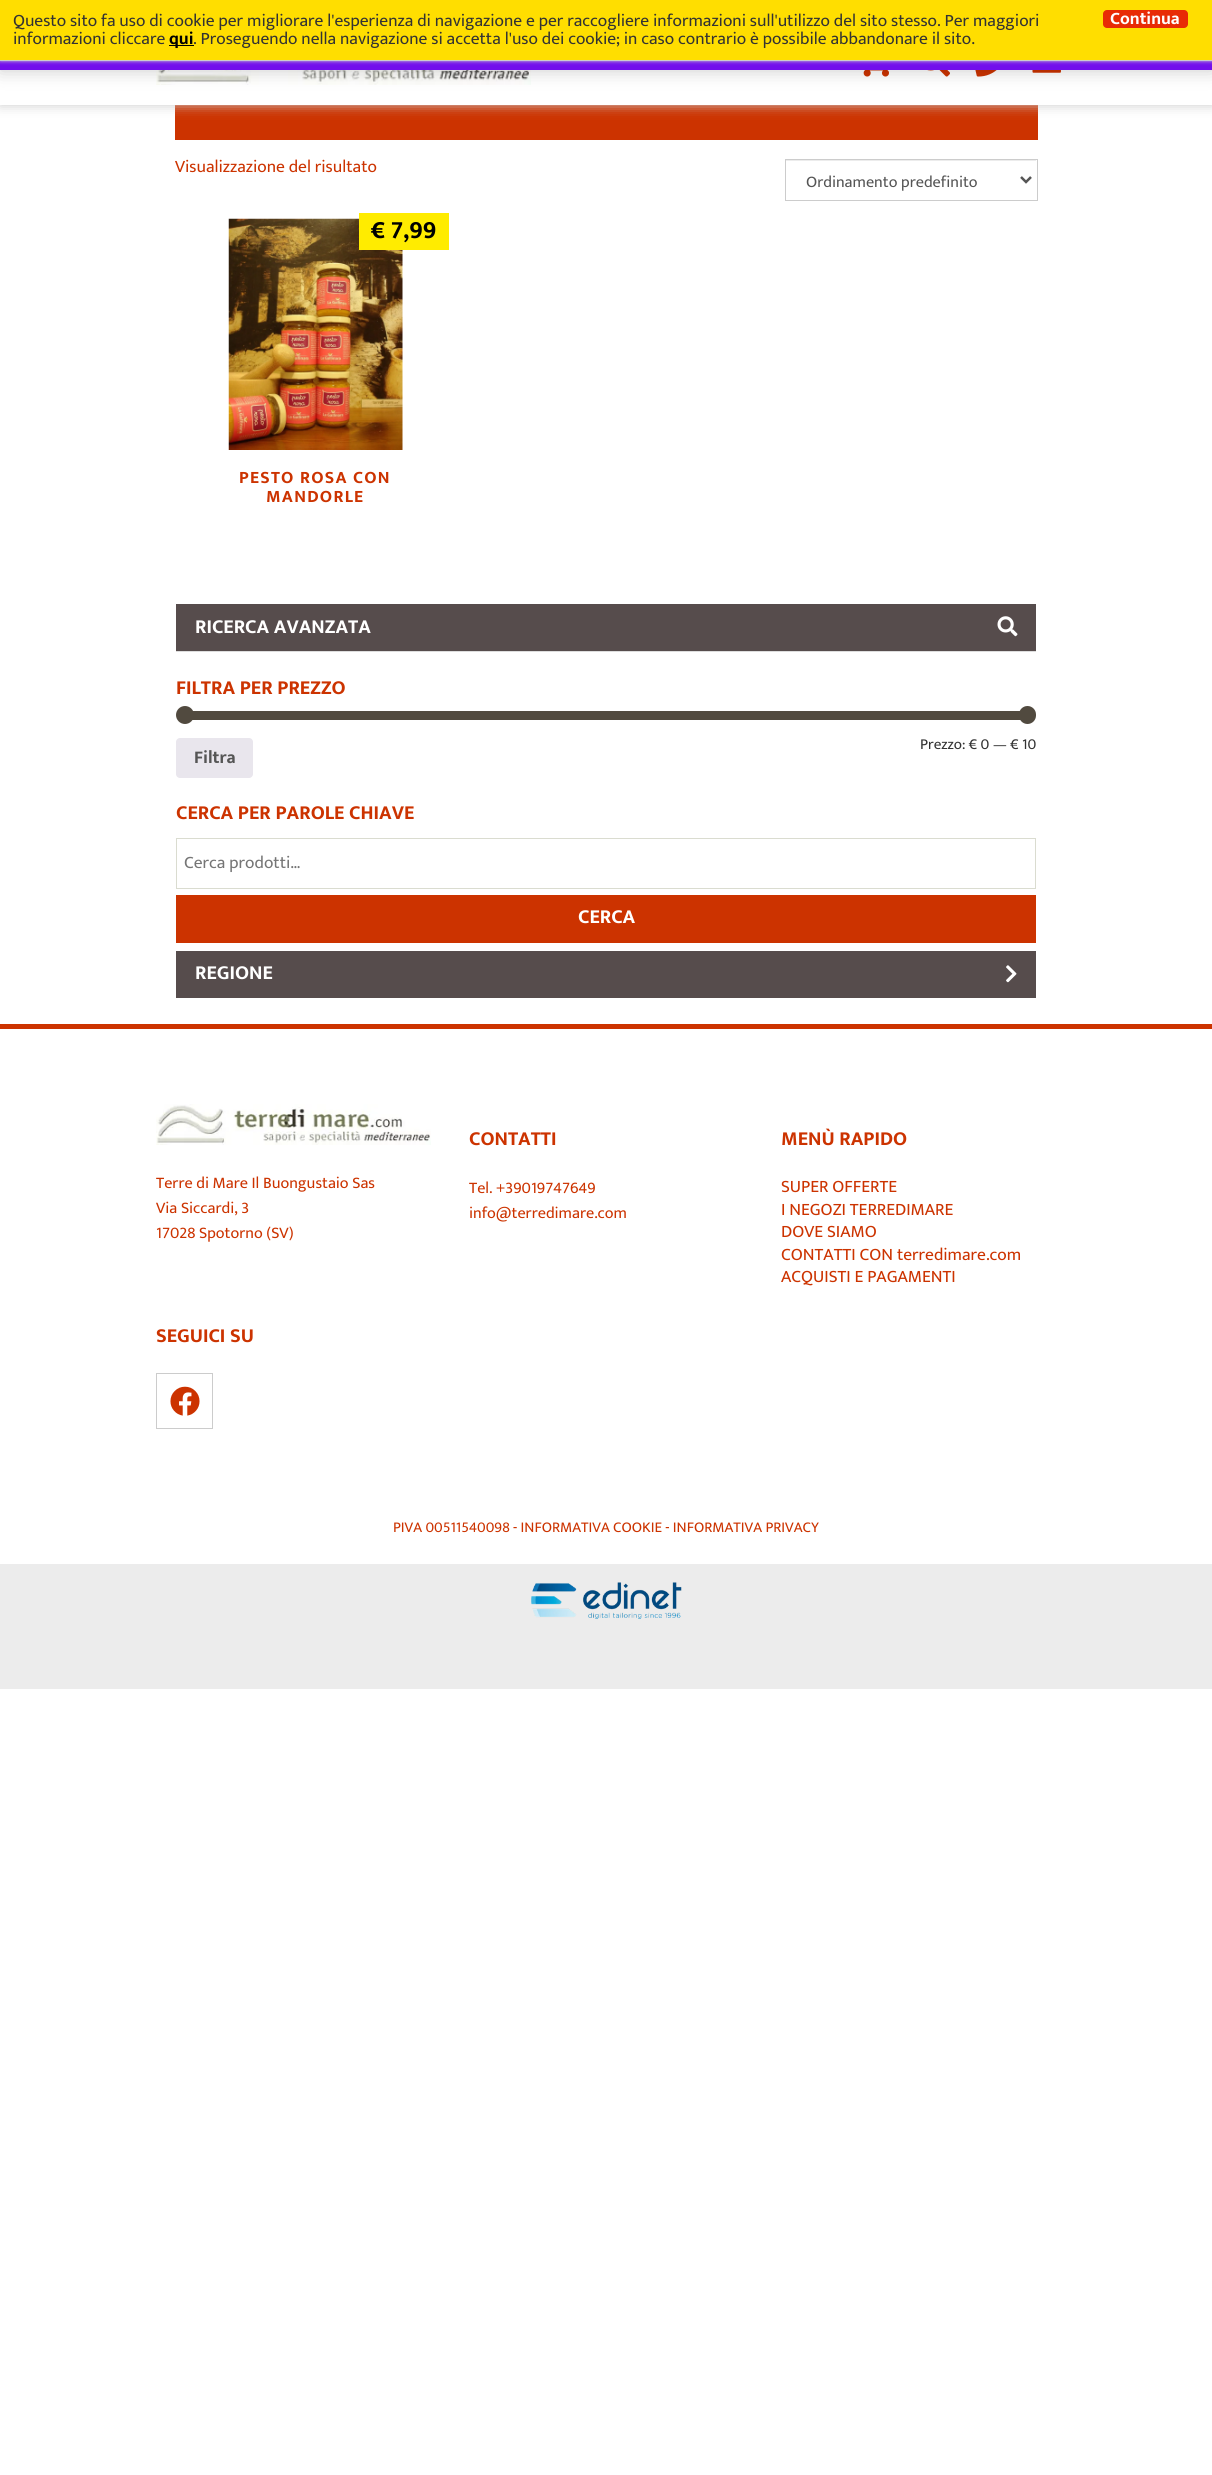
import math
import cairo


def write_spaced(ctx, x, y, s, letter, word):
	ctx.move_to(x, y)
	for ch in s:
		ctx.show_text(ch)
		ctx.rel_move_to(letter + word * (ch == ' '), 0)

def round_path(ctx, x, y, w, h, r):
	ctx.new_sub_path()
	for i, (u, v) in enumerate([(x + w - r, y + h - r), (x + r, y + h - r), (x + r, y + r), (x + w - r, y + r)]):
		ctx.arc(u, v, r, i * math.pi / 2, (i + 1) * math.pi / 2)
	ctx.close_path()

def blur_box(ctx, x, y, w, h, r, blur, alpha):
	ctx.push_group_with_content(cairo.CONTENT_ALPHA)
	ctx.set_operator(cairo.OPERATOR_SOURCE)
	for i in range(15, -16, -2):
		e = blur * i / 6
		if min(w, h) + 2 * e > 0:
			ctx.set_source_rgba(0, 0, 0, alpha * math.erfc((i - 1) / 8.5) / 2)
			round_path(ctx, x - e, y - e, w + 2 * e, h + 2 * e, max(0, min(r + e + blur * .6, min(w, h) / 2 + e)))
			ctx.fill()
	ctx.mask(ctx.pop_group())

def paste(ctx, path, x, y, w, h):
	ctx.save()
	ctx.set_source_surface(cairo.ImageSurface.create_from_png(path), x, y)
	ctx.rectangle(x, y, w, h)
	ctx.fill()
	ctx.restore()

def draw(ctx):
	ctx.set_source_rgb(1, 1, 1)
	ctx.paint()
	ctx.set_source_rgb(0.8, 0.2, 0)
	ctx.rectangle(175, 105, 863, 35)
	ctx.fill()
	ctx.set_source_rgb(0.8, 0.8, 0.8)
	blur_box(ctx, 0, 0, 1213, 105, 0, 6, 1)
	ctx.set_source_rgb(1, 1, 1)
	ctx.rectangle(0, 70, 1212, 35)
	ctx.fill()
	paste(ctx, 'media/1.png', 156, 70, 375, 15)
	paste(ctx, 'media/2.png', 863, 70, 26, 7)
	paste(ctx, 'media/3.png', 927, 70, 23, 7)
	paste(ctx, 'media/4.png', 975, 70, 22, 7)
	paste(ctx, 'media/5.png', 1032, 70, 29, 3)
	ctx.set_source_rgb(0, 0, 0)
	blur_box(ctx, 0, 1, 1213, 70, 0, 9, 0.2)
	ctx.set_source_rgb(0.447, 0.055, 0.925)
	ctx.rectangle(0, 61, 1212, 9)
	ctx.fill()
	ctx.set_source_rgb(0.8, 0.8, 0.8)
	blur_box(ctx, 0, 0, 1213, 61, 0, 2, 1)
	ctx.set_source_rgb(1, 0.871, 0)
	ctx.rectangle(0, 0, 1212, 60)
	ctx.fill()
	ctx.set_source_rgb(0.8, 0.8, 0.8)
	ctx.rectangle(0, 60, 1212, 1)
	ctx.fill()
	ctx.select_font_face('Mukta')
	ctx.set_font_size(17.5)
	ctx.set_source_rgb(0.2, 0.2, 0.2)
	ctx.move_to(13, 26)
	ctx.show_text('Questo sito fa uso di cookie per migliorare l\'esperienza di navigazione e per raccogliere informazioni sull\'utilizzo del sito stesso. Per maggiori')
	ctx.move_to(13, 44)
	ctx.show_text('informazioni cliccare')
	ctx.set_source_rgb(0, 0, 0)
	ctx.rectangle(169, 45, 25, 1)
	ctx.fill()
	ctx.select_font_face('Mukta', cairo.FONT_SLANT_NORMAL, cairo.FONT_WEIGHT_BOLD)
	ctx.move_to(169, 44)
	ctx.show_text('qui')
	ctx.select_font_face('Mukta')
	ctx.set_source_rgb(0.2, 0.2, 0.2)
	ctx.move_to(193, 44)
	ctx.show_text('. Proseguendo nella navigazione si accetta l\'uso dei cookie; in caso contrario è possibile abbandonare il sito.')
	ctx.set_source_rgb(0.91, 0.169, 0.02)
	round_path(ctx, 1103, 10, 85, 18, 4)
	ctx.fill()
	ctx.select_font_face('Mukta', cairo.FONT_SLANT_NORMAL, cairo.FONT_WEIGHT_BOLD)
	ctx.set_source_rgb(1, 1, 1)
	ctx.move_to(1110, 24)
	ctx.show_text('Continua')
	ctx.select_font_face('Mukta')
	ctx.set_source_rgb(0.8, 0.2, 0)
	ctx.move_to(175, 172)
	ctx.show_text('Visualizzazione del risultato')
	ctx.set_source_rgb(0.925, 0.925, 0.925)
	ctx.rectangle(786, 160, 250, 1)
	ctx.fill()
	ctx.rectangle(785.5, 159.5, 252, 41)
	ctx.set_source_rgb(0.8, 0.8, 0.8)
	ctx.set_line_width(1)
	ctx.stroke()
	ctx.new_path()
	ctx.move_to(1021, 177)
	ctx.line_to(1026, 182)
	ctx.line_to(1031, 177)
	ctx.set_source_rgb(0.333, 0.333, 0.333)
	ctx.set_line_width(2.5)
	ctx.stroke()
	ctx.set_font_size(16.25)
	ctx.move_to(806, 187)
	ctx.show_text('Ordinamento predefinito')
	paste(ctx, 'media/6.png', 228, 218, 175, 232)
	ctx.set_source_rgb(1, 0.922, 0)
	ctx.rectangle(359, 213, 90, 37)
	ctx.fill()
	ctx.select_font_face('Mukta', cairo.FONT_SLANT_NORMAL, cairo.FONT_WEIGHT_BOLD)
	ctx.set_font_size(25)
	ctx.set_source_rgb(0, 0, 0)
	ctx.move_to(371, 238)
	ctx.show_text('€ 7,99')
	ctx.set_font_size(17.5)
	ctx.set_source_rgb(0.8, 0.2, 0)
	write_spaced(ctx, 239, 483, 'PESTO ROSA CON', 1.25, 0)
	write_spaced(ctx, 266, 502, 'MANDORLE', 1.25, 0)
	ctx.set_source_rgb(0.337, 0.298, 0.298)
	ctx.rectangle(176, 604, 860, 47)
	ctx.fill()
	ctx.set_font_size(20)
	ctx.set_source_rgb(1, 1, 1)
	ctx.move_to(195, 633)
	ctx.show_text('RICERCA AVANZATA')
	paste(ctx, 'media/7.png', 997, 616, 21, 21)
	ctx.set_source_rgb(0.867, 0.867, 0.867)
	ctx.rectangle(176, 651, 860, 1)
	ctx.fill()
	ctx.set_source_rgb(0.8, 0.2, 0)
	ctx.move_to(176, 694)
	ctx.show_text('FILTRA PER PREZZO')
	ctx.set_source_rgb(0.318, 0.29, 0.247)
	ctx.rectangle(192, 711, 829, 9)
	ctx.fill()
	ctx.arc(185, 715, 9, 0, 2 * math.pi)
	ctx.fill()
	round_path(ctx, 1019, 706, 17, 18, 8.5)
	ctx.fill()
	ctx.select_font_face('Mukta')
	ctx.set_font_size(15.25)
	ctx.set_source_rgb(0.2, 0.2, 0.2)
	ctx.move_to(920, 749)
	ctx.show_text('Prezzo: € 0 — € 10')
	ctx.set_source_rgb(0.914, 0.902, 0.929)
	round_path(ctx, 176, 738, 77, 40, 4)
	ctx.fill()
	ctx.select_font_face('Mukta', cairo.FONT_SLANT_NORMAL, cairo.FONT_WEIGHT_BOLD)
	ctx.set_font_size(18)
	ctx.set_source_rgb(0.333, 0.333, 0.333)
	ctx.move_to(194, 763)
	ctx.show_text('Filtra')
	ctx.set_font_size(20)
	ctx.set_source_rgb(0.8, 0.2, 0)
	ctx.move_to(176, 819)
	ctx.show_text('CERCA PER PAROLE CHIAVE')
	ctx.rectangle(176.5, 838.5, 859, 50)
	ctx.set_source_rgb(0.855, 0.863, 0.816)
	ctx.set_line_width(1)
	ctx.stroke()
	ctx.select_font_face('Mukta')
	ctx.set_font_size(17.5)
	ctx.set_source_rgb(0.459, 0.459, 0.459)
	ctx.move_to(184, 868)
	ctx.show_text('Cerca prodotti…')
	ctx.set_source_rgb(0.8, 0.2, 0)
	ctx.rectangle(176, 895, 860, 48)
	ctx.fill()
	ctx.select_font_face('Mukta', cairo.FONT_SLANT_NORMAL, cairo.FONT_WEIGHT_BOLD)
	ctx.set_font_size(20)
	ctx.set_source_rgb(1, 1, 1)
	ctx.move_to(578, 923)
	ctx.show_text('CERCA')
	ctx.set_source_rgb(0.337, 0.298, 0.298)
	ctx.rectangle(176, 951, 860, 47)
	ctx.fill()
	ctx.set_source_rgb(1, 1, 1)
	ctx.move_to(195, 979)
	ctx.show_text('REGIONE')
	paste(ctx, 'media/8.png', 1006, 965, 11, 18)
	ctx.set_source_rgb(0.8, 0.2, 0)
	ctx.rectangle(0, 1024, 1212, 5)
	ctx.fill()
	paste(ctx, 'media/9.png', 156, 1104, 275, 41)
	ctx.select_font_face('Mukta')
	ctx.set_font_size(16.25)
	for x, y, s in [
		(156, 1188, 'Terre di Mare Il Buongustaio Sas'),
		(156, 1213, 'Via Siccardi, 3'),
		(156, 1238, '17028 Spotorno (SV)'),
	]:
		ctx.move_to(x, y)
		ctx.show_text(s)
	ctx.select_font_face('Mukta', cairo.FONT_SLANT_NORMAL, cairo.FONT_WEIGHT_BOLD)
	ctx.set_font_size(20)
	ctx.move_to(469, 1145)
	ctx.show_text('CONTATTI')
	ctx.select_font_face('Mukta')
	ctx.set_font_size(16.25)
	ctx.move_to(469, 1193)
	ctx.show_text('Tel. +39019747649')
	ctx.move_to(469, 1218)
	ctx.show_text('info@terredimare.com')
	ctx.select_font_face('Mukta', cairo.FONT_SLANT_NORMAL, cairo.FONT_WEIGHT_BOLD)
	ctx.set_font_size(20)
	ctx.move_to(781, 1145)
	ctx.show_text('MENÙ RAPIDO')
	ctx.select_font_face('Mukta')
	ctx.set_font_size(17.5)
	for x, y, s in [
		(781, 1192, 'SUPER OFFERTE'),
		(781, 1215, 'I NEGOZI TERREDIMARE'),
		(781, 1237, 'DOVE SIAMO'),
		(781, 1260, 'CONTATTI CON terredimare.com'),
		(781, 1282, 'ACQUISTI E PAGAMENTI'),
	]:
		ctx.move_to(x, y)
		ctx.show_text(s)
	ctx.select_font_face('Mukta', cairo.FONT_SLANT_NORMAL, cairo.FONT_WEIGHT_BOLD)
	ctx.set_font_size(20)
	ctx.move_to(156, 1342)
	ctx.show_text('SEGUICI SU')
	ctx.rectangle(156.5, 1373.5, 56, 55)
	ctx.set_source_rgb(0.8, 0.8, 0.8)
	ctx.stroke()
	paste(ctx, 'media/10.png', 170, 1386, 30, 30)
	ctx.select_font_face('Mukta')
	ctx.set_font_size(15)
	ctx.set_source_rgb(0.8, 0.2, 0)
	ctx.move_to(393, 1532)
	ctx.show_text('PIVA 00511540098 - INFORMATIVA COOKIE - INFORMATIVA PRIVACY')
	ctx.set_source_rgb(0.925, 0.925, 0.925)
	ctx.rectangle(0, 1564, 1212, 125)
	ctx.fill()
	paste(ctx, 'media/11.png', 531, 1582, 151, 37)


surface = cairo.ImageSurface(cairo.FORMAT_RGB24, 1212, 2475)
ctx = cairo.Context(surface)
options = cairo.FontOptions()
options.set_hint_metrics(cairo.HINT_METRICS_OFF)
options.set_hint_style(cairo.HINT_STYLE_NONE)
ctx.set_font_options(options)
ctx.set_miter_limit(4)
draw(ctx)
surface.write_to_png('image.png')
